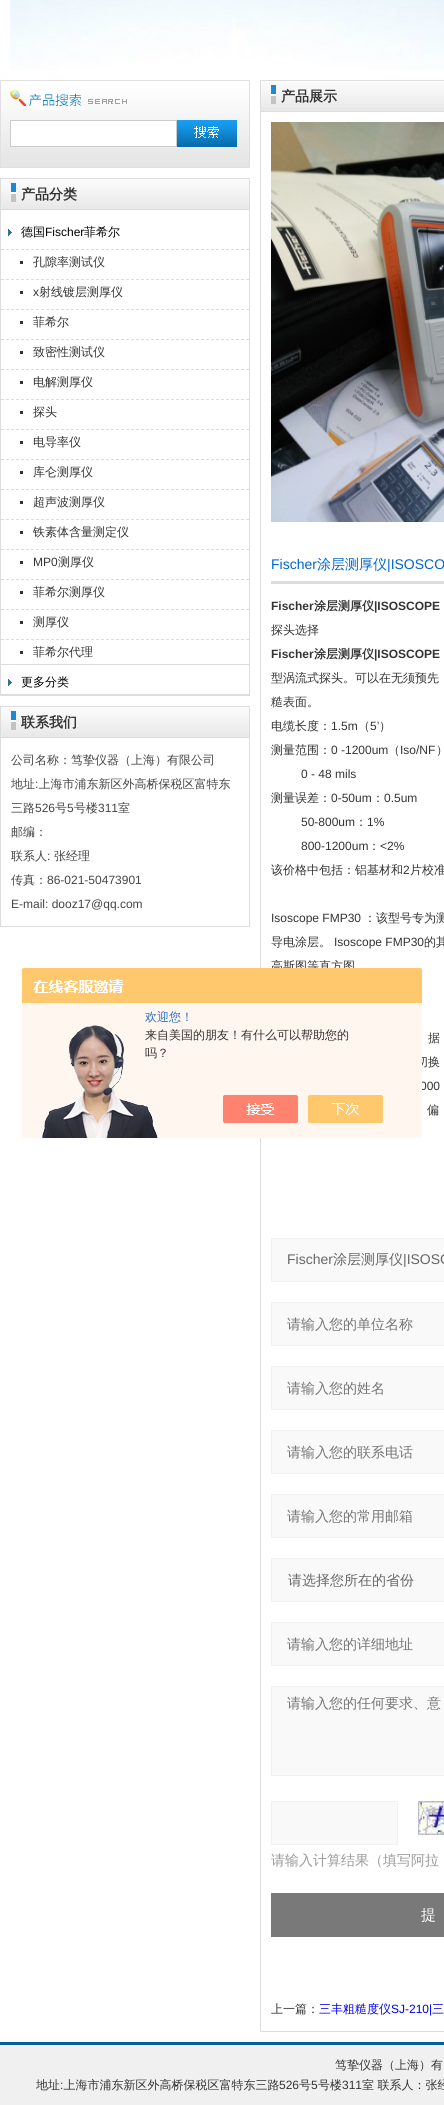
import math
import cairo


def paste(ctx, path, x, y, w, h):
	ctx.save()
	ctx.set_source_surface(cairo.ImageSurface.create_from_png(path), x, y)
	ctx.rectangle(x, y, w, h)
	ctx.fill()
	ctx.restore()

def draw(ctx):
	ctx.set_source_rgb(1, 1, 1)
	ctx.paint()
	paste(ctx, 'media/1.png', 10, 0, 434, 70)
	paste(ctx, 'media/2.png', 0, 80, 250, 88)
	ctx.set_source_rgb(1, 1, 1)
	ctx.rectangle(10.5, 120.5, 166, 26)
	ctx.fill_preserve()
	ctx.set_source_rgb(0.8, 0.8, 0.8)
	ctx.set_line_width(1)
	ctx.stroke()
	paste(ctx, 'media/3.png', 177, 120, 60, 27)
	ctx.rectangle(0.5, 178.5, 249, 517)
	ctx.set_source_rgb(0.867, 0.867, 0.867)
	ctx.stroke()
	paste(ctx, 'media/4.png', 1, 180, 248, 29)
	ctx.rectangle(1, 209, 248, 1)
	ctx.fill()
	paste(ctx, 'media/5.png', 11, 183, 5, 19)
	ctx.select_font_face('WenQuanYi Zen Hei', cairo.FONT_SLANT_NORMAL, cairo.FONT_WEIGHT_BOLD)
	ctx.set_font_size(14)
	ctx.set_source_rgb(0.2, 0.2, 0.2)
	ctx.move_to(21, 199)
	ctx.show_text('产品分类')
	ctx.set_source_rgb(0.867, 0.867, 0.867)
	ctx.rectangle(1, 664, 248, 1)
	ctx.fill()
	paste(ctx, 'media/6.png', 4, 229, 8, 9)
	ctx.select_font_face('WenQuanYi Zen Hei Medium')
	ctx.set_font_size(12)
	ctx.set_source_rgb(0, 0, 0)
	ctx.move_to(21, 236)
	ctx.show_text('德国')
	ctx.select_font_face('Liberation Sans')
	ctx.move_to(45, 236)
	ctx.show_text('Fischer')
	ctx.select_font_face('WenQuanYi Zen Hei Medium')
	ctx.move_to(84, 236)
	ctx.show_text('菲希尔')
	ctx.new_path()
	ctx.move_to(1, 249.5)
	ctx.line_to(249, 249.5)
	ctx.set_source_rgb(0.867, 0.867, 0.867)
	ctx.set_dash([3, 2])
	ctx.stroke()
	ctx.set_source_rgb(0.2, 0.2, 0.2)
	ctx.rectangle(20, 261, 3, 3)
	ctx.fill()
	ctx.move_to(33, 266)
	ctx.show_text('孔隙率测试仪')
	ctx.new_path()
	ctx.move_to(1, 279.5)
	ctx.line_to(249, 279.5)
	ctx.set_source_rgb(0.867, 0.867, 0.867)
	ctx.stroke()
	ctx.set_source_rgb(0.2, 0.2, 0.2)
	ctx.rectangle(20, 291, 3, 3)
	ctx.fill()
	ctx.select_font_face('Liberation Sans')
	ctx.move_to(33, 296)
	ctx.show_text('x')
	ctx.select_font_face('WenQuanYi Zen Hei Medium')
	ctx.move_to(39, 296)
	ctx.show_text('射线镀层测厚仪')
	ctx.new_path()
	ctx.move_to(1, 309.5)
	ctx.line_to(249, 309.5)
	ctx.set_source_rgb(0.867, 0.867, 0.867)
	ctx.stroke()
	ctx.set_source_rgb(0.2, 0.2, 0.2)
	ctx.rectangle(20, 321, 3, 3)
	ctx.fill()
	ctx.move_to(33, 326)
	ctx.show_text('菲希尔')
	ctx.new_path()
	ctx.move_to(1, 339.5)
	ctx.line_to(249, 339.5)
	ctx.set_source_rgb(0.867, 0.867, 0.867)
	ctx.stroke()
	ctx.set_source_rgb(0.2, 0.2, 0.2)
	ctx.rectangle(20, 351, 3, 3)
	ctx.fill()
	ctx.move_to(33, 356)
	ctx.show_text('致密性测试仪')
	ctx.new_path()
	ctx.move_to(1, 369.5)
	ctx.line_to(249, 369.5)
	ctx.set_source_rgb(0.867, 0.867, 0.867)
	ctx.stroke()
	ctx.set_source_rgb(0.2, 0.2, 0.2)
	ctx.rectangle(20, 381, 3, 3)
	ctx.fill()
	ctx.move_to(33, 386)
	ctx.show_text('电解测厚仪')
	ctx.new_path()
	ctx.move_to(1, 399.5)
	ctx.line_to(249, 399.5)
	ctx.set_source_rgb(0.867, 0.867, 0.867)
	ctx.stroke()
	ctx.set_source_rgb(0.2, 0.2, 0.2)
	ctx.rectangle(20, 411, 3, 3)
	ctx.fill()
	ctx.move_to(33, 416)
	ctx.show_text('探头')
	ctx.new_path()
	ctx.move_to(1, 429.5)
	ctx.line_to(249, 429.5)
	ctx.set_source_rgb(0.867, 0.867, 0.867)
	ctx.stroke()
	ctx.set_source_rgb(0.2, 0.2, 0.2)
	ctx.rectangle(20, 441, 3, 3)
	ctx.fill()
	ctx.move_to(33, 446)
	ctx.show_text('电导率仪')
	ctx.new_path()
	ctx.move_to(1, 459.5)
	ctx.line_to(249, 459.5)
	ctx.set_source_rgb(0.867, 0.867, 0.867)
	ctx.stroke()
	ctx.set_source_rgb(0.2, 0.2, 0.2)
	ctx.rectangle(20, 471, 3, 3)
	ctx.fill()
	ctx.move_to(33, 476)
	ctx.show_text('库仑测厚仪')
	ctx.new_path()
	ctx.move_to(1, 489.5)
	ctx.line_to(249, 489.5)
	ctx.set_source_rgb(0.867, 0.867, 0.867)
	ctx.stroke()
	ctx.set_source_rgb(0.2, 0.2, 0.2)
	ctx.rectangle(20, 501, 3, 3)
	ctx.fill()
	ctx.move_to(33, 506)
	ctx.show_text('超声波测厚仪')
	ctx.new_path()
	ctx.move_to(1, 519.5)
	ctx.line_to(249, 519.5)
	ctx.set_source_rgb(0.867, 0.867, 0.867)
	ctx.stroke()
	ctx.set_source_rgb(0.2, 0.2, 0.2)
	ctx.rectangle(20, 531, 3, 3)
	ctx.fill()
	ctx.move_to(33, 536)
	ctx.show_text('铁素体含量测定仪')
	ctx.new_path()
	ctx.move_to(1, 549.5)
	ctx.line_to(249, 549.5)
	ctx.set_source_rgb(0.867, 0.867, 0.867)
	ctx.stroke()
	ctx.set_source_rgb(0.2, 0.2, 0.2)
	ctx.rectangle(20, 561, 3, 3)
	ctx.fill()
	ctx.select_font_face('Liberation Sans')
	ctx.move_to(33, 566)
	ctx.show_text('MP0')
	ctx.select_font_face('WenQuanYi Zen Hei Medium')
	ctx.move_to(58, 566)
	ctx.show_text('测厚仪')
	ctx.new_path()
	ctx.move_to(1, 579.5)
	ctx.line_to(249, 579.5)
	ctx.set_source_rgb(0.867, 0.867, 0.867)
	ctx.stroke()
	ctx.set_source_rgb(0.2, 0.2, 0.2)
	ctx.rectangle(20, 591, 3, 3)
	ctx.fill()
	ctx.move_to(33, 596)
	ctx.show_text('菲希尔测厚仪')
	ctx.new_path()
	ctx.move_to(1, 609.5)
	ctx.line_to(249, 609.5)
	ctx.set_source_rgb(0.867, 0.867, 0.867)
	ctx.stroke()
	ctx.set_source_rgb(0.2, 0.2, 0.2)
	ctx.rectangle(20, 621, 3, 3)
	ctx.fill()
	ctx.move_to(33, 626)
	ctx.show_text('测厚仪')
	ctx.new_path()
	ctx.move_to(1, 639.5)
	ctx.line_to(249, 639.5)
	ctx.set_source_rgb(0.867, 0.867, 0.867)
	ctx.stroke()
	ctx.set_source_rgb(0.2, 0.2, 0.2)
	ctx.rectangle(20, 651, 3, 3)
	ctx.fill()
	ctx.move_to(33, 656)
	ctx.show_text('菲希尔代理')
	ctx.set_source_rgb(0.867, 0.867, 0.867)
	ctx.rectangle(1, 694, 248, 1)
	ctx.fill()
	paste(ctx, 'media/6.png', 4, 679, 8, 9)
	ctx.set_source_rgb(0, 0, 0)
	ctx.move_to(21, 686)
	ctx.show_text('更多分类')
	ctx.rectangle(0.5, 706.5, 249, 220)
	ctx.set_source_rgb(0.867, 0.867, 0.867)
	ctx.set_dash([])
	ctx.stroke()
	paste(ctx, 'media/4.png', 1, 708, 248, 29)
	ctx.rectangle(1, 737, 248, 1)
	ctx.fill()
	paste(ctx, 'media/5.png', 11, 711, 5, 19)
	ctx.select_font_face('WenQuanYi Zen Hei', cairo.FONT_SLANT_NORMAL, cairo.FONT_WEIGHT_BOLD)
	ctx.set_font_size(14)
	ctx.set_source_rgb(0.2, 0.2, 0.2)
	ctx.move_to(21, 727)
	ctx.show_text('联系我们')
	ctx.select_font_face('WenQuanYi Zen Hei Medium')
	ctx.set_font_size(12)
	ctx.set_source_rgb(0.267, 0.267, 0.267)
	ctx.move_to(11, 764)
	ctx.show_text('公司名称：笃挚仪器（上海）有限公司')
	ctx.move_to(11, 788)
	ctx.show_text('地址 上海市浦东新区外高桥保税区富特东')
	ctx.select_font_face('Liberation Sans')
	ctx.move_to(35, 788)
	ctx.show_text(':')
	ctx.select_font_face('WenQuanYi Zen Hei Medium')
	ctx.move_to(11, 812)
	ctx.show_text('三路')
	ctx.select_font_face('Liberation Sans')
	ctx.move_to(35, 812)
	ctx.show_text('526')
	ctx.select_font_face('WenQuanYi Zen Hei Medium')
	ctx.move_to(55, 812)
	ctx.show_text('号')
	ctx.select_font_face('Liberation Sans')
	ctx.move_to(67, 812)
	ctx.show_text('5')
	ctx.select_font_face('WenQuanYi Zen Hei Medium')
	ctx.move_to(74, 812)
	ctx.show_text('号楼')
	ctx.select_font_face('Liberation Sans')
	ctx.move_to(98, 812)
	ctx.show_text('311')
	ctx.select_font_face('WenQuanYi Zen Hei Medium')
	for x, y, s in [
		(118, 812, '室'),
		(11, 836, '邮编：'),
		(11, 860, '联系人'),
	]:
		ctx.move_to(x, y)
		ctx.show_text(s)
	ctx.select_font_face('Liberation Sans')
	ctx.move_to(47, 860)
	ctx.show_text(':')
	ctx.select_font_face('WenQuanYi Zen Hei Medium')
	ctx.move_to(54, 860)
	ctx.show_text('张经理')
	ctx.move_to(11, 884)
	ctx.show_text('传真：')
	ctx.select_font_face('Liberation Sans')
	ctx.move_to(47, 884)
	ctx.show_text('86-021-50473901')
	ctx.move_to(11, 908)
	ctx.show_text('E-mail: dooz17@qq.com')
	ctx.rectangle(260.5, 80.5, 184, 1951)
	ctx.set_source_rgb(0.867, 0.867, 0.867)
	ctx.stroke()
	paste(ctx, 'media/7.png', 261, 82, 183, 29)
	ctx.rectangle(261, 111, 183, 1)
	ctx.fill()
	paste(ctx, 'media/5.png', 271, 85, 5, 19)
	ctx.select_font_face('WenQuanYi Zen Hei', cairo.FONT_SLANT_NORMAL, cairo.FONT_WEIGHT_BOLD)
	ctx.set_font_size(14)
	ctx.set_source_rgb(0.2, 0.2, 0.2)
	ctx.move_to(281, 101)
	ctx.show_text('产品展示')
	paste(ctx, 'media/8.png', 271, 122, 173, 400)
	ctx.set_source_rgb(0.867, 0.867, 0.867)
	ctx.rectangle(271, 581, 173, 3)
	ctx.fill()
	ctx.select_font_face('Liberation Sans')
	ctx.set_source_rgb(0, 0.4, 0.8)
	ctx.move_to(271, 569)
	ctx.show_text('Fischer')
	ctx.select_font_face('WenQuanYi Zen Hei Medium')
	ctx.move_to(317, 569)
	ctx.show_text('涂层测厚仪')
	ctx.select_font_face('Liberation Sans')
	ctx.move_to(387, 569)
	ctx.show_text('|ISOSCO')
	ctx.select_font_face('Liberation Sans', cairo.FONT_SLANT_NORMAL, cairo.FONT_WEIGHT_BOLD)
	ctx.set_font_size(12)
	ctx.set_source_rgb(0.2, 0.2, 0.2)
	ctx.move_to(271, 610)
	ctx.show_text('Fischer')
	ctx.select_font_face('WenQuanYi Zen Hei', cairo.FONT_SLANT_NORMAL, cairo.FONT_WEIGHT_BOLD)
	ctx.move_to(314, 610)
	ctx.show_text('涂层测厚仪')
	ctx.select_font_face('Liberation Sans', cairo.FONT_SLANT_NORMAL, cairo.FONT_WEIGHT_BOLD)
	ctx.move_to(374, 610)
	ctx.show_text('|ISOSCOPE')
	ctx.select_font_face('WenQuanYi Zen Hei Medium')
	ctx.move_to(271, 634)
	ctx.show_text('探头选择')
	ctx.select_font_face('Liberation Sans', cairo.FONT_SLANT_NORMAL, cairo.FONT_WEIGHT_BOLD)
	ctx.move_to(271, 658)
	ctx.show_text('Fischer')
	ctx.select_font_face('WenQuanYi Zen Hei', cairo.FONT_SLANT_NORMAL, cairo.FONT_WEIGHT_BOLD)
	ctx.move_to(314, 658)
	ctx.show_text('涂层测厚仪')
	ctx.select_font_face('Liberation Sans', cairo.FONT_SLANT_NORMAL, cairo.FONT_WEIGHT_BOLD)
	ctx.move_to(374, 658)
	ctx.show_text('|ISOSCOPE')
	ctx.select_font_face('WenQuanYi Zen Hei Medium')
	for x, y, s in [
		(271, 682, '型涡流式探头。可以在无须预先'),
		(271, 706, '糙表面。'),
		(271, 730, '电缆长度：'),
	]:
		ctx.move_to(x, y)
		ctx.show_text(s)
	ctx.select_font_face('Liberation Sans')
	ctx.move_to(331, 730)
	ctx.show_text('1.5m')
	ctx.select_font_face('WenQuanYi Zen Hei Medium')
	ctx.move_to(358, 730)
	ctx.show_text('（')
	ctx.select_font_face('Liberation Sans')
	ctx.move_to(370, 730)
	ctx.show_text('5’')
	ctx.select_font_face('WenQuanYi Zen Hei Medium')
	ctx.move_to(379, 730)
	ctx.show_text('）')
	ctx.move_to(271, 754)
	ctx.show_text('测量范围：')
	ctx.select_font_face('Liberation Sans')
	ctx.move_to(331, 754)
	ctx.show_text('0 -1200um')
	ctx.select_font_face('WenQuanYi Zen Hei Medium')
	ctx.move_to(388, 754)
	ctx.show_text('（')
	ctx.select_font_face('Liberation Sans')
	ctx.move_to(400, 754)
	ctx.show_text('Iso/NF')
	ctx.select_font_face('WenQuanYi Zen Hei Medium')
	ctx.move_to(436, 754)
	ctx.show_text('）')
	ctx.select_font_face('Liberation Sans')
	ctx.move_to(301, 778)
	ctx.show_text('0 - 48 mils')
	ctx.select_font_face('WenQuanYi Zen Hei Medium')
	ctx.move_to(271, 802)
	ctx.show_text('测量误差：')
	ctx.select_font_face('Liberation Sans')
	ctx.move_to(331, 802)
	ctx.show_text('0-50um')
	ctx.select_font_face('WenQuanYi Zen Hei Medium')
	ctx.move_to(372, 802)
	ctx.show_text('：')
	ctx.select_font_face('Liberation Sans')
	ctx.move_to(384, 802)
	ctx.show_text('0.5um')
	ctx.move_to(301, 826)
	ctx.show_text('50-800um')
	ctx.select_font_face('WenQuanYi Zen Hei Medium')
	ctx.move_to(355, 826)
	ctx.show_text('：')
	ctx.select_font_face('Liberation Sans')
	ctx.move_to(367, 826)
	ctx.show_text('1%')
	ctx.move_to(301, 850)
	ctx.show_text('800-1200um')
	ctx.select_font_face('WenQuanYi Zen Hei Medium')
	ctx.move_to(368, 850)
	ctx.show_text('：')
	ctx.select_font_face('Liberation Sans')
	ctx.move_to(380, 850)
	ctx.show_text('<2%')
	ctx.select_font_face('WenQuanYi Zen Hei Medium')
	ctx.move_to(271, 874)
	ctx.show_text('该价格中包括：铝基材和')
	ctx.select_font_face('Liberation Sans')
	ctx.move_to(403, 874)
	ctx.show_text('2')
	ctx.select_font_face('WenQuanYi Zen Hei Medium')
	ctx.move_to(410, 874)
	ctx.show_text('片校准')
	ctx.select_font_face('Liberation Sans')
	ctx.move_to(271, 922)
	ctx.show_text('Isoscope FMP30')
	ctx.select_font_face('WenQuanYi Zen Hei Medium')
	ctx.move_to(364, 922)
	ctx.show_text('：该型号专为测')
	ctx.move_to(271, 946)
	ctx.show_text('导电涂层。')
	ctx.select_font_face('Liberation Sans')
	ctx.move_to(334, 946)
	ctx.show_text('Isoscope FMP30')
	ctx.select_font_face('WenQuanYi Zen Hei Medium')
	for x, y, s in [
		(424, 946, '的其'),
		(271, 970, '高斯图等直方图'),
		(428, 1042, '据'),
		(416, 1066, '切换'),
	]:
		ctx.move_to(x, y)
		ctx.show_text(s)
	ctx.select_font_face('Liberation Sans')
	ctx.move_to(420, 1090)
	ctx.show_text('000')
	ctx.select_font_face('WenQuanYi Zen Hei Medium')
	ctx.move_to(427, 1114)
	ctx.show_text('偏')
	ctx.set_source_rgb(0.973, 0.973, 0.973)
	ctx.rectangle(271.5, 1238.5, 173, 43)
	ctx.fill_preserve()
	ctx.set_source_rgb(0.945, 0.945, 0.945)
	ctx.stroke()
	ctx.select_font_face('Liberation Sans')
	ctx.set_font_size(14)
	ctx.set_source_rgb(0.4, 0.4, 0.4)
	ctx.move_to(287, 1264)
	ctx.show_text('Fischer')
	ctx.select_font_face('WenQuanYi Zen Hei Medium')
	ctx.move_to(333, 1264)
	ctx.show_text('涂层测厚仪')
	ctx.select_font_face('Liberation Sans')
	ctx.move_to(403, 1264)
	ctx.show_text('|ISOSC')
	ctx.set_source_rgb(0.973, 0.973, 0.973)
	ctx.rectangle(271.5, 1302.5, 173, 43)
	ctx.fill_preserve()
	ctx.set_source_rgb(0.945, 0.945, 0.945)
	ctx.stroke()
	ctx.select_font_face('WenQuanYi Zen Hei Medium')
	ctx.set_source_rgb(0.459, 0.459, 0.459)
	ctx.move_to(287, 1329)
	ctx.show_text('请输入您的单位名称')
	ctx.set_source_rgb(0.973, 0.973, 0.973)
	ctx.rectangle(271.5, 1366.5, 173, 43)
	ctx.fill_preserve()
	ctx.set_source_rgb(0.945, 0.945, 0.945)
	ctx.stroke()
	ctx.set_source_rgb(0.459, 0.459, 0.459)
	ctx.move_to(287, 1393)
	ctx.show_text('请输入您的姓名')
	ctx.set_source_rgb(0.973, 0.973, 0.973)
	ctx.rectangle(271.5, 1430.5, 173, 43)
	ctx.fill_preserve()
	ctx.set_source_rgb(0.945, 0.945, 0.945)
	ctx.stroke()
	ctx.set_source_rgb(0.459, 0.459, 0.459)
	ctx.move_to(287, 1457)
	ctx.show_text('请输入您的联系电话')
	ctx.set_source_rgb(0.973, 0.973, 0.973)
	ctx.rectangle(271.5, 1494.5, 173, 43)
	ctx.fill_preserve()
	ctx.set_source_rgb(0.945, 0.945, 0.945)
	ctx.stroke()
	ctx.set_source_rgb(0.459, 0.459, 0.459)
	ctx.move_to(287, 1521)
	ctx.show_text('请输入您的常用邮箱')
	ctx.set_source_rgb(0.973, 0.973, 0.973)
	ctx.rectangle(271.5, 1558.5, 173, 43)
	ctx.fill_preserve()
	ctx.set_source_rgb(0.945, 0.945, 0.945)
	ctx.stroke()
	ctx.set_source_rgb(0.4, 0.4, 0.4)
	ctx.move_to(288, 1585)
	ctx.show_text('请选择您所在的省份')
	ctx.set_source_rgb(0.973, 0.973, 0.973)
	ctx.rectangle(271.5, 1622.5, 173, 43)
	ctx.fill_preserve()
	ctx.set_source_rgb(0.945, 0.945, 0.945)
	ctx.stroke()
	ctx.set_source_rgb(0.459, 0.459, 0.459)
	ctx.move_to(287, 1649)
	ctx.show_text('请输入您的详细地址')
	ctx.set_source_rgb(0.973, 0.973, 0.973)
	ctx.rectangle(271.5, 1686.5, 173, 89)
	ctx.fill_preserve()
	ctx.set_source_rgb(0.945, 0.945, 0.945)
	ctx.stroke()
	ctx.set_source_rgb(0.459, 0.459, 0.459)
	ctx.move_to(287, 1708)
	ctx.show_text('请输入您的任何要求、意')
	ctx.set_source_rgb(0.973, 0.973, 0.973)
	ctx.rectangle(271.5, 1801.5, 126, 43)
	ctx.fill_preserve()
	ctx.set_source_rgb(0.945, 0.945, 0.945)
	ctx.stroke()
	paste(ctx, 'media/9.png', 418, 1801, 26, 34)
	ctx.set_source_rgb(0.6, 0.6, 0.6)
	ctx.move_to(271, 1865)
	ctx.show_text('请输入计算结果（填写阿拉')
	ctx.set_source_rgb(0.475, 0.475, 0.475)
	ctx.rectangle(271, 1893, 173, 44)
	ctx.fill()
	ctx.set_font_size(15)
	ctx.set_source_rgb(1, 1, 1)
	ctx.move_to(421, 1920)
	ctx.show_text('提')
	ctx.set_font_size(12)
	ctx.set_source_rgb(0.2, 0.2, 0.2)
	ctx.move_to(271, 2013)
	ctx.show_text('上一篇：')
	ctx.set_source_rgb(0, 0, 0.933)
	ctx.move_to(319, 2013)
	ctx.show_text('三丰粗糙度仪')
	ctx.select_font_face('Liberation Sans')
	ctx.move_to(391, 2013)
	ctx.show_text('SJ-210|')
	ctx.select_font_face('WenQuanYi Zen Hei Medium')
	ctx.move_to(432, 2013)
	ctx.show_text('三')
	ctx.set_source_rgb(0.941, 0.941, 0.941)
	ctx.rectangle(0, 2045, 444, 60)
	ctx.fill()
	ctx.set_source_rgb(0.008, 0.376, 0.608)
	ctx.rectangle(0, 2042, 444, 3)
	ctx.fill()
	ctx.set_source_rgb(0.2, 0.2, 0.2)
	ctx.move_to(335, 2069)
	ctx.show_text('笃挚仪器（上海）有')
	ctx.move_to(36, 2089)
	ctx.show_text('地址 上海市浦东新区外高桥保税区富特东三路')
	ctx.select_font_face('Liberation Sans')
	ctx.move_to(279, 2089)
	ctx.show_text('526')
	ctx.select_font_face('WenQuanYi Zen Hei Medium')
	ctx.move_to(299, 2089)
	ctx.show_text('号')
	ctx.select_font_face('Liberation Sans')
	ctx.move_to(311, 2089)
	ctx.show_text('5')
	ctx.select_font_face('WenQuanYi Zen Hei Medium')
	ctx.move_to(318, 2089)
	ctx.show_text('号楼')
	ctx.select_font_face('Liberation Sans')
	ctx.move_to(342, 2089)
	ctx.show_text('311')
	ctx.select_font_face('WenQuanYi Zen Hei Medium')
	ctx.move_to(362, 2089)
	ctx.show_text('室 联系人：张经')
	ctx.select_font_face('Liberation Sans')
	ctx.move_to(60, 2089)
	ctx.show_text(':')
	paste(ctx, 'media/10.png', 22, 968, 400, 170)
	ctx.select_font_face('WenQuanYi Zen Hei Medium')
	ctx.set_source_rgb(0.18, 0.431, 0.776)
	ctx.move_to(145, 1021)
	ctx.show_text('欢迎您！')
	ctx.set_source_rgb(0.2, 0.2, 0.2)
	ctx.move_to(145, 1039)
	ctx.show_text('来自美国的朋友！有什么可以帮助您的')
	ctx.move_to(145, 1057)
	ctx.show_text('吗？')


surface = cairo.ImageSurface(cairo.FORMAT_RGB24, 444, 2105)
ctx = cairo.Context(surface)
options = cairo.FontOptions()
options.set_hint_metrics(cairo.HINT_METRICS_OFF)
options.set_hint_style(cairo.HINT_STYLE_NONE)
ctx.set_font_options(options)
ctx.set_miter_limit(4)
draw(ctx)
surface.write_to_png('image.png')
